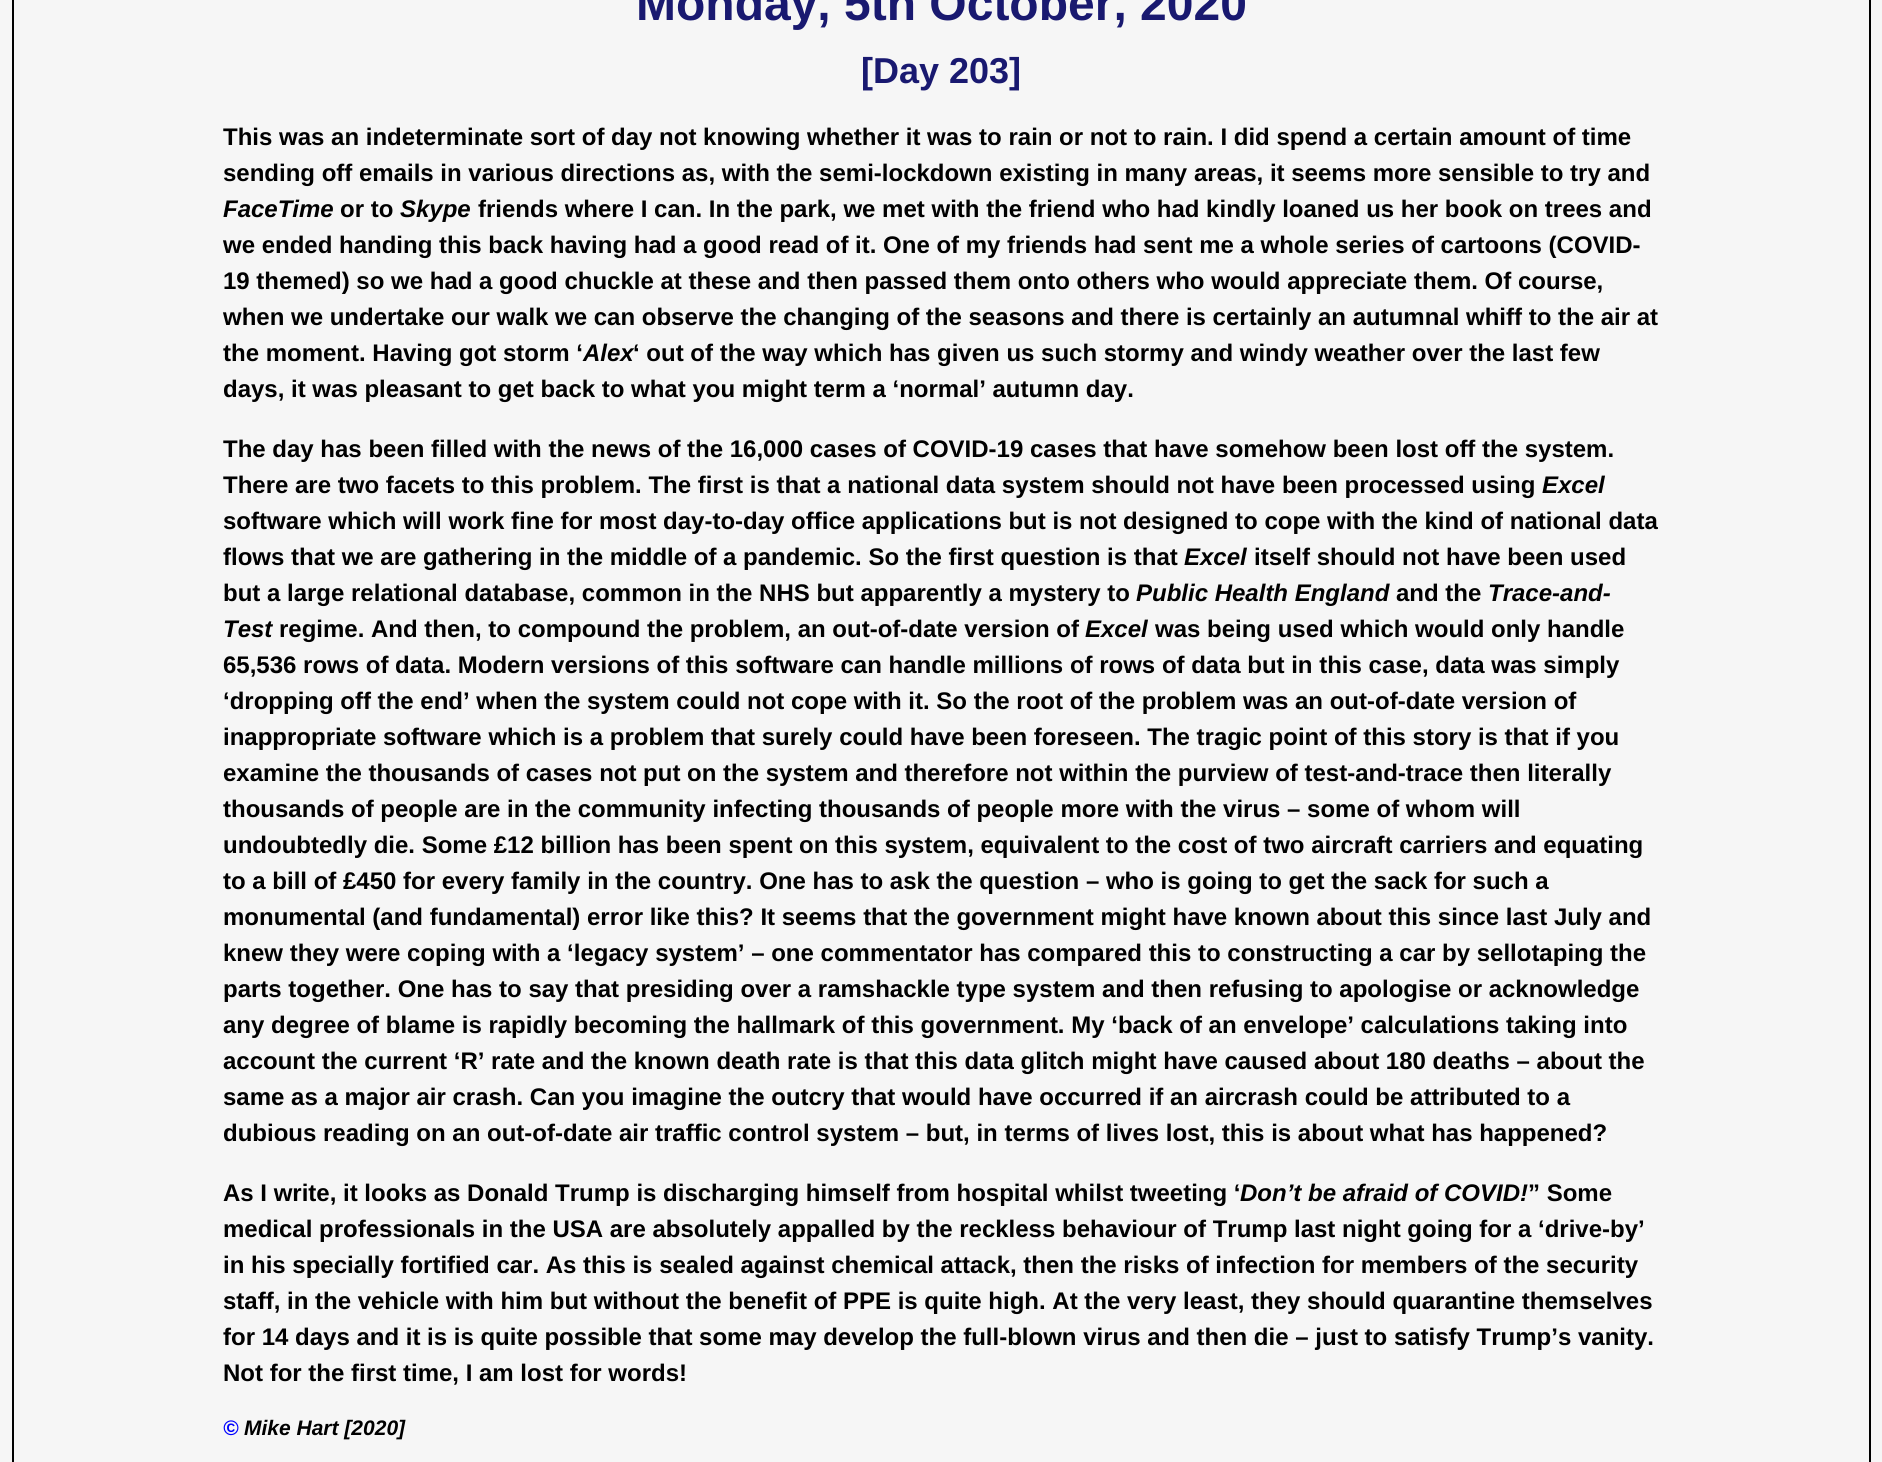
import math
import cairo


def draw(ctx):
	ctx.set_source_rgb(0.961, 0.961, 0.961)
	ctx.paint()
	ctx.rectangle(13, -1, 1857, 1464)
	ctx.set_source_rgb(0, 0, 0)
	ctx.stroke()
	ctx.select_font_face('Liberation Sans', cairo.FONT_SLANT_NORMAL, cairo.FONT_WEIGHT_BOLD)
	ctx.set_font_size(48)
	ctx.set_source_rgb(0.098, 0.098, 0.439)
	ctx.move_to(636, 20)
	ctx.show_text('Monday, 5th October, 2020')
	ctx.set_font_size(36)
	ctx.move_to(861, 83)
	ctx.show_text('[Day 203]')
	ctx.set_font_size(24)
	ctx.set_source_rgb(0, 0, 0)
	ctx.move_to(223, 145)
	ctx.show_text('This was an indeterminate sort of day not knowing whether it was to rain or not to rain. I did spend a certain amount of time')
	ctx.move_to(223, 181)
	ctx.show_text('sending off emails in various directions as, with the semi-lockdown existing in many areas, it seems more sensible to try and')
	ctx.select_font_face('Liberation Sans', cairo.FONT_SLANT_ITALIC, cairo.FONT_WEIGHT_BOLD)
	ctx.move_to(223, 217)
	ctx.show_text('FaceTime')
	ctx.select_font_face('Liberation Sans', cairo.FONT_SLANT_NORMAL, cairo.FONT_WEIGHT_BOLD)
	ctx.move_to(340, 217)
	ctx.show_text('or to')
	ctx.select_font_face('Liberation Sans', cairo.FONT_SLANT_ITALIC, cairo.FONT_WEIGHT_BOLD)
	ctx.move_to(400, 217)
	ctx.show_text('Skype')
	ctx.select_font_face('Liberation Sans', cairo.FONT_SLANT_NORMAL, cairo.FONT_WEIGHT_BOLD)
	for x, y, s in [
		(478, 217, 'friends where I can. In the park, we met with the friend who had kindly loaned us her book on trees and'),
		(223, 253, 'we ended handing this back having had a good read of it. One of my friends had sent me a whole series of cartoons (COVID-'),
		(223, 289, '19 themed) so we had a good chuckle at these and then passed them onto others who would appreciate them. Of course,'),
		(223, 325, 'when we undertake our walk we can observe the changing of the seasons and there is certainly an autumnal whiff to the air at'),
		(223, 361, 'the moment. Having got storm ‘'),
	]:
		ctx.move_to(x, y)
		ctx.show_text(s)
	ctx.select_font_face('Liberation Sans', cairo.FONT_SLANT_ITALIC, cairo.FONT_WEIGHT_BOLD)
	ctx.move_to(583, 361)
	ctx.show_text('Alex')
	ctx.select_font_face('Liberation Sans', cairo.FONT_SLANT_NORMAL, cairo.FONT_WEIGHT_BOLD)
	for x, y, s in [
		(633, 361, '‘ out of the way which has given us such stormy and windy weather over the last few'),
		(223, 397, 'days, it was pleasant to get back to what you might term a ‘normal’ autumn day.'),
		(223, 457, 'The day has been filled with the news of the 16,000 cases of COVID-19 cases that have somehow been lost off the system.'),
		(223, 493, 'There are two facets to this problem. The first is that a national data system should not have been processed using'),
	]:
		ctx.move_to(x, y)
		ctx.show_text(s)
	ctx.select_font_face('Liberation Sans', cairo.FONT_SLANT_ITALIC, cairo.FONT_WEIGHT_BOLD)
	ctx.move_to(1542, 493)
	ctx.show_text('Excel')
	ctx.select_font_face('Liberation Sans', cairo.FONT_SLANT_NORMAL, cairo.FONT_WEIGHT_BOLD)
	ctx.move_to(223, 529)
	ctx.show_text('software which will work fine for most day-to-day office applications but is not designed to cope with the kind of national data')
	ctx.move_to(223, 565)
	ctx.show_text('flows that we are gathering in the middle of a pandemic. So the first question is that')
	ctx.select_font_face('Liberation Sans', cairo.FONT_SLANT_ITALIC, cairo.FONT_WEIGHT_BOLD)
	ctx.move_to(1184, 565)
	ctx.show_text('Excel')
	ctx.select_font_face('Liberation Sans', cairo.FONT_SLANT_NORMAL, cairo.FONT_WEIGHT_BOLD)
	ctx.move_to(1254, 565)
	ctx.show_text('itself should not have been used')
	ctx.move_to(223, 601)
	ctx.show_text('but a large relational database, common in the NHS but apparently a mystery to')
	ctx.select_font_face('Liberation Sans', cairo.FONT_SLANT_ITALIC, cairo.FONT_WEIGHT_BOLD)
	ctx.move_to(1136, 601)
	ctx.show_text('Public Health England')
	ctx.select_font_face('Liberation Sans', cairo.FONT_SLANT_NORMAL, cairo.FONT_WEIGHT_BOLD)
	ctx.move_to(1396, 601)
	ctx.show_text('and the')
	ctx.select_font_face('Liberation Sans', cairo.FONT_SLANT_ITALIC, cairo.FONT_WEIGHT_BOLD)
	ctx.move_to(1488, 601)
	ctx.show_text('Trace-and-')
	ctx.move_to(223, 637)
	ctx.show_text('Test')
	ctx.select_font_face('Liberation Sans', cairo.FONT_SLANT_NORMAL, cairo.FONT_WEIGHT_BOLD)
	ctx.move_to(279, 637)
	ctx.show_text('regime. And then, to compound the problem, an out-of-date version of')
	ctx.select_font_face('Liberation Sans', cairo.FONT_SLANT_ITALIC, cairo.FONT_WEIGHT_BOLD)
	ctx.move_to(1085, 637)
	ctx.show_text('Excel')
	ctx.select_font_face('Liberation Sans', cairo.FONT_SLANT_NORMAL, cairo.FONT_WEIGHT_BOLD)
	for x, y, s in [
		(1155, 637, 'was being used which would only handle'),
		(223, 673, '65,536 rows of data. Modern versions of this software can handle millions of rows of data but in this case, data was simply'),
		(223, 709, '‘dropping off the end’ when the system could not cope with it. So the root of the problem was an out-of-date version of'),
		(223, 745, 'inappropriate software which is a problem that surely could have been foreseen. The tragic point of this story is that if you'),
		(223, 781, 'examine the thousands of cases not put on the system and therefore not within the purview of test-and-trace then literally'),
		(223, 817, 'thousands of people are in the community infecting thousands of people more with the virus – some of whom will'),
		(223, 853, 'undoubtedly die. Some £12 billion has been spent on this system, equivalent to the cost of two aircraft carriers and equating'),
		(223, 889, 'to a bill of £450 for every family in the country. One has to ask the question – who is going to get the sack for such a'),
		(223, 925, 'monumental (and fundamental) error like this? It seems that the government might have known about this since last July and'),
		(223, 961, 'knew they were coping with a ‘legacy system’ – one commentator has compared this to constructing a car by sellotaping the'),
		(223, 997, 'parts together. One has to say that presiding over a ramshackle type system and then refusing to apologise or acknowledge'),
		(223, 1033, 'any degree of blame is rapidly becoming the hallmark of this government. My ‘back of an envelope’ calculations taking into'),
		(223, 1069, 'account the current ‘R’ rate and the known death rate is that this data glitch might have caused about 180 deaths – about the'),
		(223, 1105, 'same as a major air crash. Can you imagine the outcry that would have occurred if an aircrash could be attributed to a'),
		(223, 1141, 'dubious reading on an out-of-date air traffic control system – but, in terms of lives lost, this is about what has happened?'),
		(223, 1201, 'As I write, it looks as Donald Trump is discharging himself from hospital whilst tweeting ‘'),
	]:
		ctx.move_to(x, y)
		ctx.show_text(s)
	ctx.select_font_face('Liberation Sans', cairo.FONT_SLANT_ITALIC, cairo.FONT_WEIGHT_BOLD)
	ctx.move_to(1240, 1201)
	ctx.show_text('Don’t be afraid of COVID!')
	ctx.select_font_face('Liberation Sans', cairo.FONT_SLANT_NORMAL, cairo.FONT_WEIGHT_BOLD)
	for x, y, s in [
		(1528, 1201, '” Some'),
		(223, 1237, 'medical professionals in the USA are absolutely appalled by the reckless behaviour of Trump last night going for a ‘drive-by’'),
		(223, 1273, 'in his specially fortified car. As this is sealed against chemical attack, then the risks of infection for members of the security'),
		(223, 1309, 'staff, in the vehicle with him but without the benefit of PPE is quite high. At the very least, they should quarantine themselves'),
		(223, 1345, 'for 14 days and it is is quite possible that some may develop the full-blown virus and then die – just to satisfy Trump’s vanity.'),
		(223, 1381, 'Not for the first time, I am lost for words!'),
	]:
		ctx.move_to(x, y)
		ctx.show_text(s)
	ctx.select_font_face('Liberation Sans', cairo.FONT_SLANT_ITALIC, cairo.FONT_WEIGHT_BOLD)
	ctx.set_font_size(21)
	ctx.set_source_rgb(0, 0, 1)
	ctx.move_to(223, 1435)
	ctx.show_text('©')
	ctx.set_source_rgb(0, 0, 0)
	ctx.move_to(244, 1435)
	ctx.show_text('Mike Hart [2020]')


surface = cairo.ImageSurface(cairo.FORMAT_RGB24, 1882, 1462)
ctx = cairo.Context(surface)
options = cairo.FontOptions()
options.set_hint_metrics(cairo.HINT_METRICS_OFF)
options.set_hint_style(cairo.HINT_STYLE_NONE)
ctx.set_font_options(options)
ctx.set_miter_limit(4)
draw(ctx)
surface.write_to_png('image.png')
